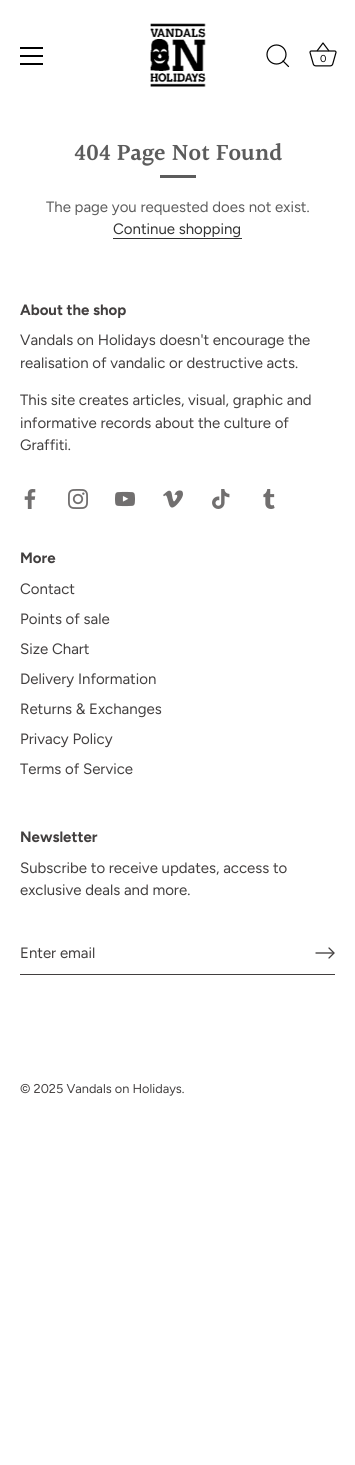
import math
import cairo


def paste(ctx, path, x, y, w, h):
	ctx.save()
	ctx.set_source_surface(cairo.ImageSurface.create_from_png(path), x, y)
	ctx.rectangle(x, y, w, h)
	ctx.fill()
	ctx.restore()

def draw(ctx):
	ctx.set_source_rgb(1, 1, 1)
	ctx.paint()
	ctx.set_source_rgb(0, 0, 0)
	ctx.rectangle(20, 47, 23, 2)
	ctx.rectangle(20, 55, 23, 2)
	ctx.rectangle(20, 63, 23, 2)
	ctx.fill()
	paste(ctx, 'media/1.png', 150, 23, 56, 64)
	ctx.arc(276.5, 54.5, 9.5, 0, 2 * math.pi)
	ctx.set_line_width(1.2)
	ctx.stroke()
	ctx.new_path()
	ctx.move_to(288.5, 66.5)
	ctx.line_to(283, 61)
	ctx.set_line_cap(cairo.LINE_CAP_ROUND)
	ctx.set_line_join(cairo.LINE_JOIN_ROUND)
	ctx.stroke()
	paste(ctx, 'media/2.png', 309, 42, 28, 25)
	ctx.select_font_face('Figtree')
	ctx.set_font_size(10)
	ctx.move_to(320, 62)
	ctx.show_text('0')
	ctx.select_font_face('Halant SemiBold')
	ctx.set_font_size(23.5)
	ctx.set_source_rgb(0.361, 0.361, 0.361)
	ctx.move_to(74, 161)
	ctx.show_text('404 Page Not Found')
	ctx.rectangle(160, 175, 36, 3)
	ctx.fill()
	ctx.select_font_face('Figtree')
	ctx.set_font_size(15)
	ctx.move_to(46, 212)
	ctx.show_text('The page you requested does not exist.')
	ctx.set_source_rgb(0.196, 0.196, 0.196)
	ctx.move_to(113, 234)
	ctx.show_text('Continue shopping')
	ctx.rectangle(113, 238, 129, 1)
	ctx.fill()
	ctx.select_font_face('Figtree', cairo.FONT_SLANT_NORMAL, cairo.FONT_WEIGHT_BOLD)
	ctx.set_source_rgb(0.259, 0.247, 0.247)
	ctx.move_to(20, 315)
	ctx.show_text('About the shop')
	ctx.select_font_face('Figtree')
	for x, y, s in [
		(20, 345, 'Vandals on Holidays doesn\'t encourage the'),
		(20, 368, 'realisation of vandalic or destructive acts.'),
		(20, 405, 'This site creates articles, visual, graphic and'),
		(20, 428, 'informative records about the culture of'),
		(20, 450, 'Graffiti.'),
	]:
		ctx.move_to(x, y)
		ctx.show_text(s)
	paste(ctx, 'media/3.png', 24, 489, 12, 20)
	paste(ctx, 'media/4.png', 68, 489, 20, 20)
	paste(ctx, 'media/5.png', 115, 491, 20, 16)
	paste(ctx, 'media/6.png', 163, 490, 20, 18)
	paste(ctx, 'media/7.png', 212, 489, 18, 20)
	paste(ctx, 'media/8.png', 263, 489, 12, 20)
	ctx.select_font_face('Figtree', cairo.FONT_SLANT_NORMAL, cairo.FONT_WEIGHT_BOLD)
	ctx.move_to(20, 563)
	ctx.show_text('More')
	ctx.select_font_face('Figtree')
	for x, y, s in [
		(20, 594, 'Contact'),
		(20, 624, 'Points of sale'),
		(20, 654, 'Size Chart'),
		(20, 684, 'Delivery Information'),
		(20, 714, 'Returns & Exchanges'),
		(20, 744, 'Privacy Policy'),
		(20, 774, 'Terms of Service'),
	]:
		ctx.move_to(x, y)
		ctx.show_text(s)
	ctx.select_font_face('Figtree', cairo.FONT_SLANT_NORMAL, cairo.FONT_WEIGHT_BOLD)
	ctx.move_to(20, 842)
	ctx.show_text('Newsletter')
	ctx.select_font_face('Figtree')
	ctx.move_to(20, 873)
	ctx.show_text('Subscribe to receive updates, access to')
	ctx.move_to(20, 895)
	ctx.show_text('exclusive deals and more.')
	ctx.rectangle(20, 974, 315, 1)
	ctx.fill()
	ctx.move_to(20, 958)
	ctx.show_text('Enter email')
	ctx.new_path()
	ctx.move_to(329, 958)
	ctx.line_to(334, 953)
	ctx.line_to(329, 948)
	ctx.set_line_width(1.3)
	ctx.set_line_join(cairo.LINE_JOIN_MITER)
	ctx.stroke()
	ctx.new_path()
	ctx.move_to(333, 953)
	ctx.line_to(316, 953)
	ctx.set_line_join(cairo.LINE_JOIN_ROUND)
	ctx.stroke()
	ctx.set_font_size(12.75)
	ctx.move_to(20, 1093)
	ctx.show_text('© 2025 Vandals on Holidays.')


surface = cairo.ImageSurface(cairo.FORMAT_RGB24, 355, 1465)
ctx = cairo.Context(surface)
options = cairo.FontOptions()
options.set_hint_metrics(cairo.HINT_METRICS_OFF)
options.set_hint_style(cairo.HINT_STYLE_NONE)
ctx.set_font_options(options)
ctx.set_miter_limit(4)
draw(ctx)
surface.write_to_png('image.png')
